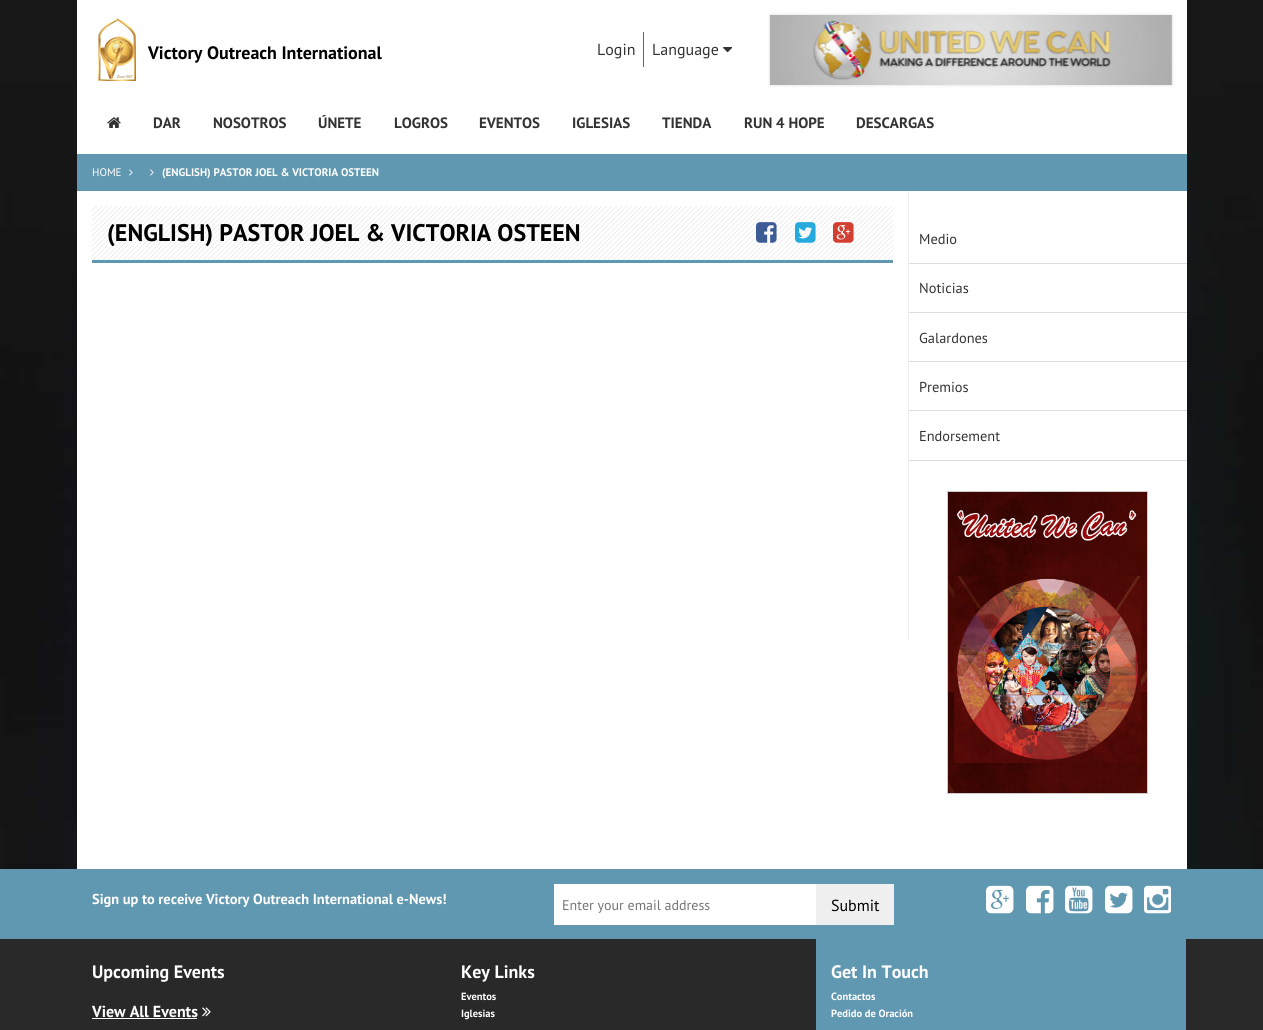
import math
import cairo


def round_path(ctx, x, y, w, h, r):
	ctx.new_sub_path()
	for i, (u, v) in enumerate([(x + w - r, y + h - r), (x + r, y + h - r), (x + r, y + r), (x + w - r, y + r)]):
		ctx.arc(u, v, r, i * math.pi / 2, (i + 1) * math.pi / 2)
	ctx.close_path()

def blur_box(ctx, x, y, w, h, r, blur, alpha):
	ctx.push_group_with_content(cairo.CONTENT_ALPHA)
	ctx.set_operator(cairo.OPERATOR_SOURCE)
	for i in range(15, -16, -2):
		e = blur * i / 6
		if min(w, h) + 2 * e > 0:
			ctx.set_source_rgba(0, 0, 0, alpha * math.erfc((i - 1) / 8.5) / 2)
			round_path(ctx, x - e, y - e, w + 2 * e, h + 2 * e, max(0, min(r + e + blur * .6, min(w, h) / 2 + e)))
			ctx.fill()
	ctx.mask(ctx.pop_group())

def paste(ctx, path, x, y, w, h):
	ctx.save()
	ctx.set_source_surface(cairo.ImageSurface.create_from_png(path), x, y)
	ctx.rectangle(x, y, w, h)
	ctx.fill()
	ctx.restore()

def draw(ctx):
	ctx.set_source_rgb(1, 1, 1)
	ctx.paint()
	paste(ctx, 'media/1.png', 0, 0, 1263, 869)
	ctx.set_source_rgb(1, 1, 1)
	ctx.rectangle(77, 0, 1110, 154)
	ctx.fill()
	paste(ctx, 'media/2.png', 98, 18, 38, 63)
	ctx.select_font_face('PT Sans', cairo.FONT_SLANT_NORMAL, cairo.FONT_WEIGHT_BOLD)
	ctx.set_font_size(18)
	ctx.set_source_rgb(0, 0, 0)
	ctx.move_to(148, 59)
	ctx.show_text('Victory Outreach International')
	ctx.select_font_face('PT Sans')
	ctx.set_font_size(16)
	ctx.set_source_rgb(0.2, 0.2, 0.2)
	ctx.move_to(597, 55)
	ctx.show_text('Login')
	ctx.set_source_rgb(0.4, 0.4, 0.4)
	ctx.rectangle(643, 32, 1, 35)
	ctx.fill()
	ctx.set_source_rgb(0.2, 0.2, 0.2)
	ctx.move_to(652, 55)
	ctx.show_text('Language')
	paste(ctx, 'media/3.png', 723, 47, 10, 6)
	ctx.set_source_rgb(0.761, 0.749, 0.733)
	blur_box(ctx, 770, 15, 402, 70, 0, 1.5, 0.6)
	paste(ctx, 'media/4.png', 770, 15, 402, 70)
	paste(ctx, 'media/5.png', 107, 117, 14, 11)
	ctx.select_font_face('PT Sans', cairo.FONT_SLANT_NORMAL, cairo.FONT_WEIGHT_BOLD)
	ctx.set_font_size(15)
	ctx.set_source_rgb(0.2, 0.2, 0.2)
	for x, y, s in [
		(153, 128, 'DAR'),
		(213, 128, 'NOSOTROS'),
		(318, 128, 'ÚNETE'),
		(394, 128, 'LOGROS'),
		(479, 128, 'EVENTOS'),
		(572, 128, 'IGLESIAS'),
		(662, 128, 'TIENDA'),
		(744, 128, 'RUN 4 HOPE'),
		(856, 128, 'DESCARGAS'),
	]:
		ctx.move_to(x, y)
		ctx.show_text(s)
	ctx.set_source_rgb(0.38, 0.596, 0.694)
	ctx.rectangle(77, 154, 1110, 37)
	ctx.fill()
	ctx.select_font_face('PT Sans')
	ctx.set_font_size(11)
	ctx.set_source_rgb(1, 1, 1)
	ctx.move_to(92, 176)
	ctx.show_text('HOME')
	paste(ctx, 'media/6.png', 129, 169, 4, 7)
	paste(ctx, 'media/6.png', 150, 169, 4, 7)
	ctx.select_font_face('PT Sans', cairo.FONT_SLANT_NORMAL, cairo.FONT_WEIGHT_BOLD)
	ctx.move_to(162, 176)
	ctx.show_text('(ENGLISH) PASTOR JOEL & VICTORIA OSTEEN')
	ctx.rectangle(77, 191, 1110, 678)
	ctx.fill()
	ctx.set_source_rgb(0.933, 0.933, 0.933)
	ctx.rectangle(908, 191, 1, 449)
	ctx.fill()
	paste(ctx, 'media/7.png', 92, 206, 801, 54)
	ctx.set_source_rgb(0.38, 0.596, 0.694)
	ctx.rectangle(92, 260, 801, 3)
	ctx.fill()
	ctx.set_font_size(24)
	ctx.set_source_rgb(0, 0, 0)
	ctx.move_to(107, 241)
	ctx.show_text('(ENGLISH) PASTOR JOEL & VICTORIA OSTEEN')
	paste(ctx, 'media/8.png', 756, 222, 21, 21)
	paste(ctx, 'media/9.png', 795, 222, 21, 21)
	paste(ctx, 'media/10.png', 833, 222, 21, 21)
	ctx.set_source_rgb(0.867, 0.867, 0.867)
	ctx.rectangle(909, 460, 278, 1)
	ctx.fill()
	ctx.select_font_face('PT Sans')
	ctx.set_font_size(14.4)
	ctx.set_source_rgb(0.2, 0.2, 0.2)
	ctx.move_to(919, 244)
	ctx.show_text('Medio')
	ctx.set_source_rgb(0.867, 0.867, 0.867)
	ctx.rectangle(909, 263, 278, 1)
	ctx.fill()
	ctx.set_source_rgb(0.2, 0.2, 0.2)
	ctx.move_to(919, 293)
	ctx.show_text('Noticias')
	ctx.set_source_rgb(0.867, 0.867, 0.867)
	ctx.rectangle(909, 312, 278, 1)
	ctx.fill()
	ctx.set_source_rgb(0.2, 0.2, 0.2)
	ctx.move_to(919, 343)
	ctx.show_text('Galardones')
	ctx.set_source_rgb(0.867, 0.867, 0.867)
	ctx.rectangle(909, 361, 278, 1)
	ctx.fill()
	ctx.set_source_rgb(0.2, 0.2, 0.2)
	ctx.move_to(919, 392)
	ctx.show_text('Premios')
	ctx.set_source_rgb(0.867, 0.867, 0.867)
	ctx.rectangle(909, 410, 278, 1)
	ctx.fill()
	ctx.set_source_rgb(0.2, 0.2, 0.2)
	ctx.move_to(919, 441)
	ctx.show_text('Endorsement')
	paste(ctx, 'media/11.png', 948, 492, 199, 301)
	ctx.rectangle(947.5, 491.5, 200, 302)
	ctx.set_source_rgb(0.8, 0.8, 0.8)
	ctx.set_line_width(1)
	ctx.stroke()
	paste(ctx, 'media/12.png', 956, 509, 181, 32)
	paste(ctx, 'media/13.png', 954, 576, 187, 187)
	ctx.set_source_rgb(0.38, 0.596, 0.694)
	ctx.rectangle(0, 869, 1263, 70)
	ctx.fill()
	ctx.select_font_face('PT Sans', cairo.FONT_SLANT_NORMAL, cairo.FONT_WEIGHT_BOLD)
	ctx.set_source_rgb(1, 1, 1)
	ctx.move_to(92, 904)
	ctx.show_text('Sign up to receive Victory Outreach International e-News!')
	ctx.rectangle(554, 884, 262, 41)
	ctx.fill()
	ctx.select_font_face('PT Sans')
	ctx.set_font_size(14)
	ctx.set_source_rgb(0.459, 0.459, 0.459)
	ctx.move_to(562, 910)
	ctx.show_text('Enter your email address')
	ctx.set_source_rgb(0.937, 0.937, 0.937)
	ctx.rectangle(816, 884, 78, 41)
	ctx.fill()
	ctx.set_font_size(16)
	ctx.set_source_rgb(0, 0, 0)
	ctx.move_to(831, 911)
	ctx.show_text('Submit')
	paste(ctx, 'media/14.png', 986, 885, 28, 29)
	paste(ctx, 'media/15.png', 1026, 885, 28, 29)
	paste(ctx, 'media/16.png', 1065, 885, 28, 29)
	paste(ctx, 'media/17.png', 1105, 885, 28, 29)
	paste(ctx, 'media/18.png', 1144, 885, 27, 29)
	ctx.set_source_rgb(0.161, 0.161, 0.161)
	ctx.rectangle(0, 939, 1263, 91)
	ctx.fill()
	ctx.select_font_face('PT Sans', cairo.FONT_SLANT_NORMAL, cairo.FONT_WEIGHT_BOLD)
	ctx.set_font_size(18)
	ctx.set_source_rgb(1, 1, 1)
	ctx.move_to(92, 978)
	ctx.show_text('Upcoming Events')
	ctx.set_font_size(16)
	ctx.move_to(92, 1017)
	ctx.show_text('View All Events')
	ctx.rectangle(92, 1018, 105, 1)
	ctx.fill()
	paste(ctx, 'media/19.png', 202, 1007, 9, 10)
	ctx.set_font_size(18)
	ctx.move_to(461, 978)
	ctx.show_text('Key Links')
	ctx.set_font_size(10.5)
	ctx.move_to(461, 1000)
	ctx.show_text('Eventos')
	ctx.move_to(461, 1017)
	ctx.show_text('Iglesias')
	ctx.set_source_rgb(0.38, 0.596, 0.694)
	ctx.rectangle(816, 939, 370, 91)
	ctx.fill()
	ctx.set_font_size(18)
	ctx.set_source_rgb(1, 1, 1)
	ctx.move_to(831, 978)
	ctx.show_text('Get In Touch')
	ctx.set_font_size(10.5)
	ctx.move_to(831, 1000)
	ctx.show_text('Contactos')
	ctx.move_to(831, 1017)
	ctx.show_text('Pedido de Oración')


surface = cairo.ImageSurface(cairo.FORMAT_RGB24, 1263, 1030)
ctx = cairo.Context(surface)
options = cairo.FontOptions()
options.set_hint_metrics(cairo.HINT_METRICS_OFF)
options.set_hint_style(cairo.HINT_STYLE_NONE)
ctx.set_font_options(options)
ctx.set_miter_limit(4)
draw(ctx)
surface.write_to_png('image.png')
